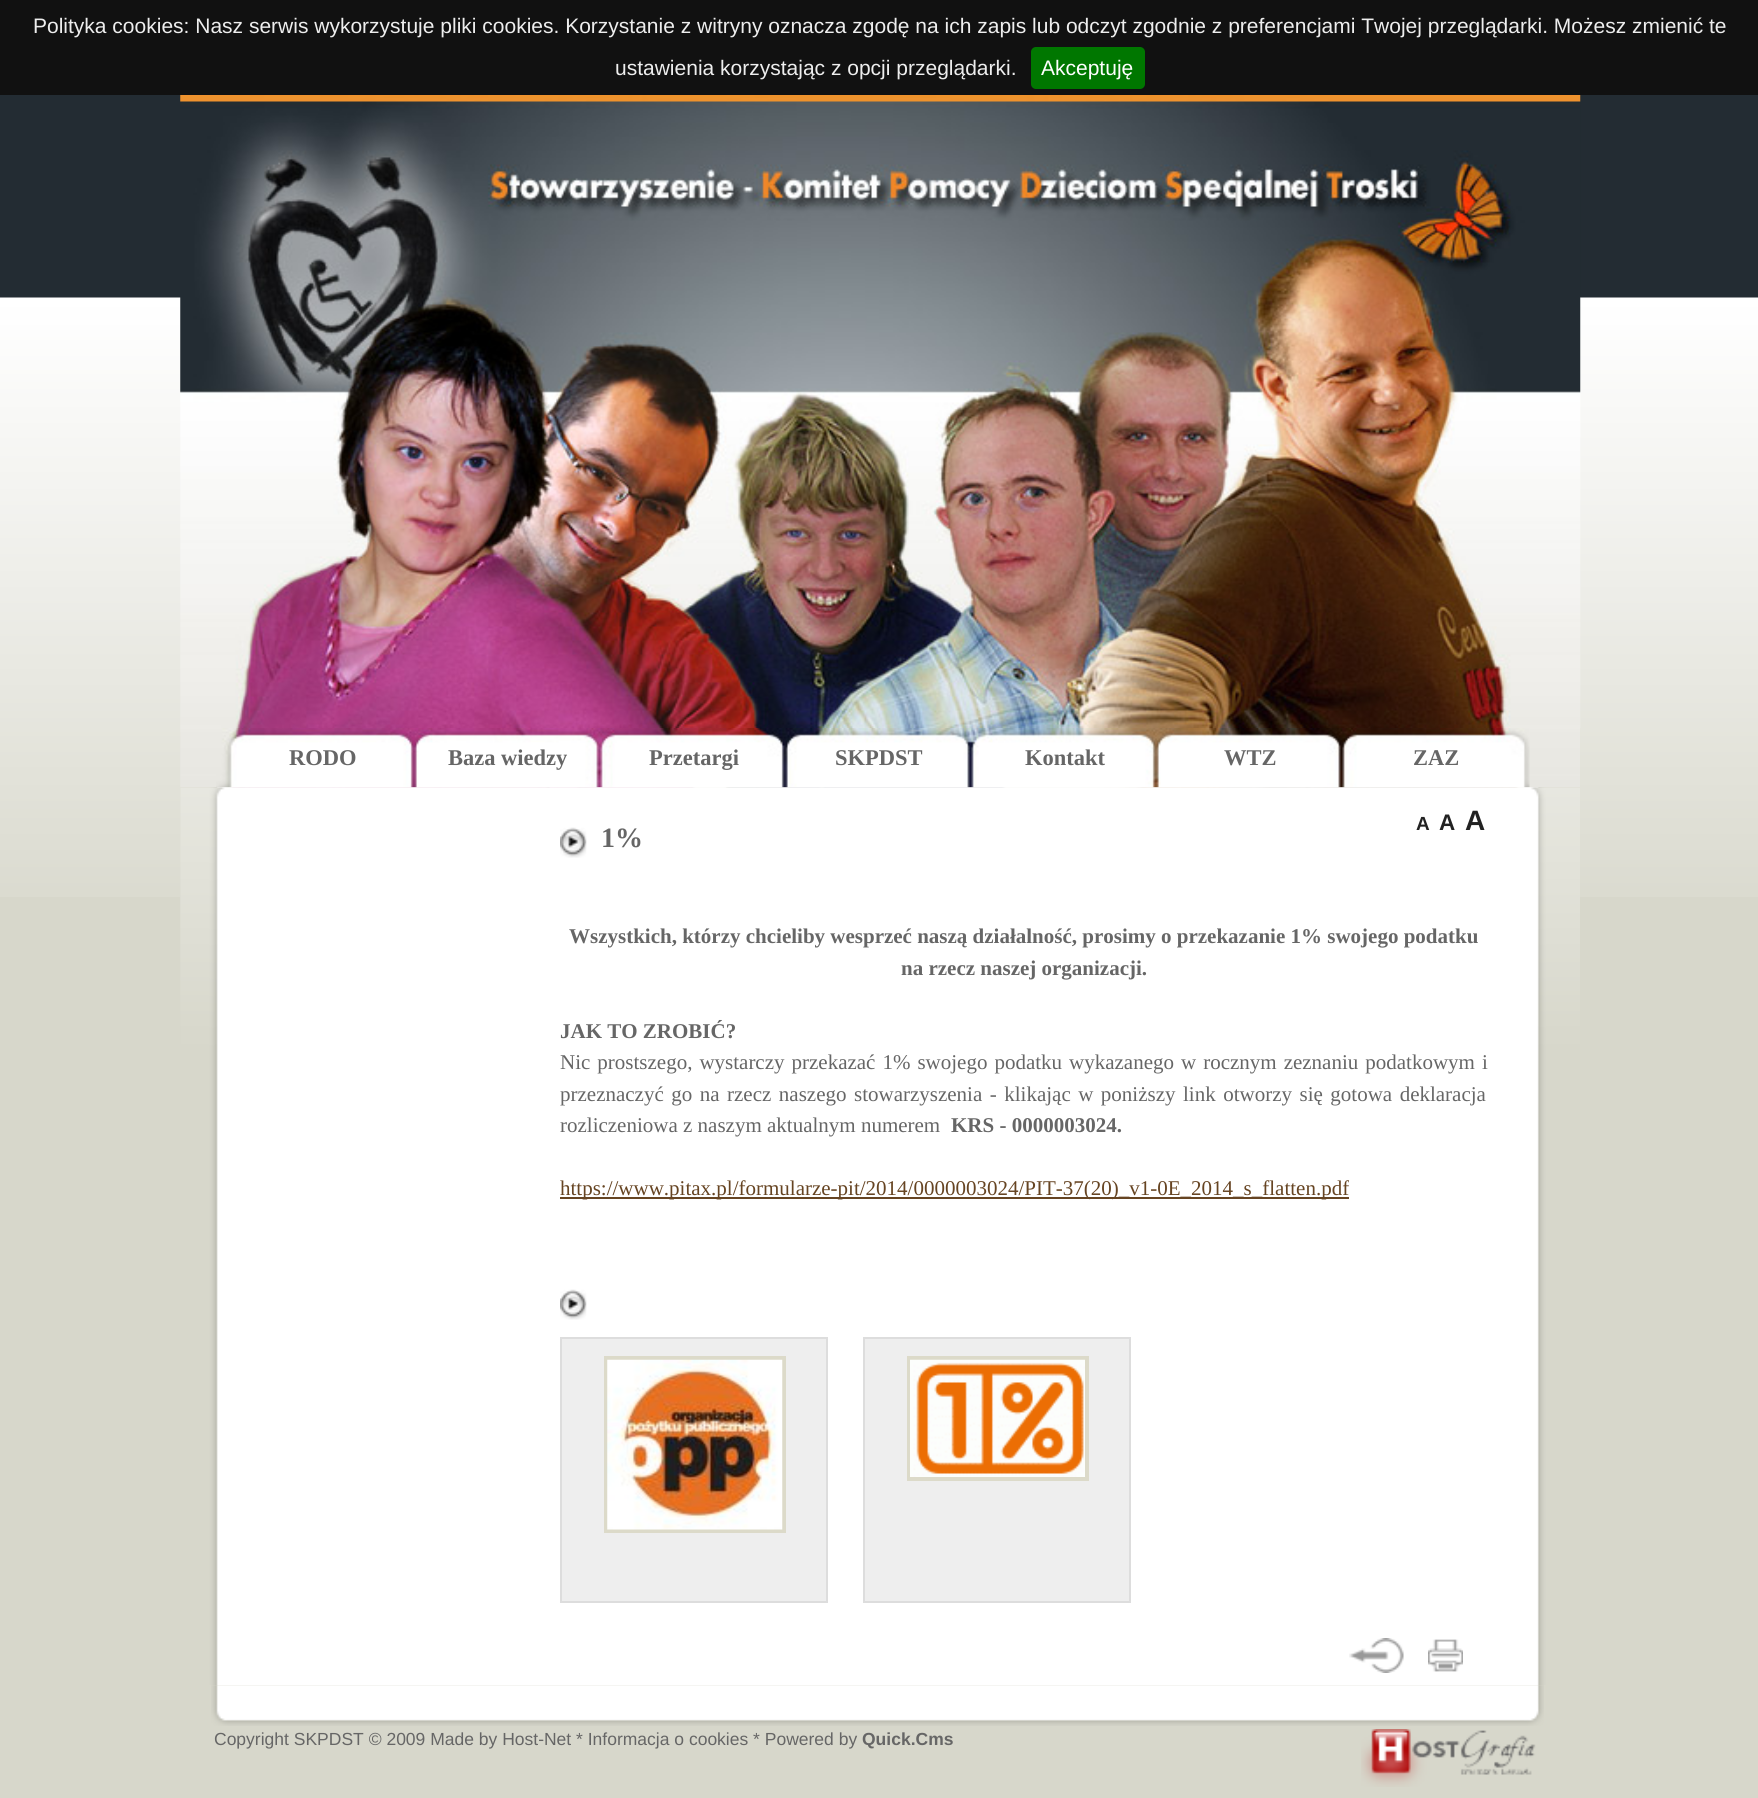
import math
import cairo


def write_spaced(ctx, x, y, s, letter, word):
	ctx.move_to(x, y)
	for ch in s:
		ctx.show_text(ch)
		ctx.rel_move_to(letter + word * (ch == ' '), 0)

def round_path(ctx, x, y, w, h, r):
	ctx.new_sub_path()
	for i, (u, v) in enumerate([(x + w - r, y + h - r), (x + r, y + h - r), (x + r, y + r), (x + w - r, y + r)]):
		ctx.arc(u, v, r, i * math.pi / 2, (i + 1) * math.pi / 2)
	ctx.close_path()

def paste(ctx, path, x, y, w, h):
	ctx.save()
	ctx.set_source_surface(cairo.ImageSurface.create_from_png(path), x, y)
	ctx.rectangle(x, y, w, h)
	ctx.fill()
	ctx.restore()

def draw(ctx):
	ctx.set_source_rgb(0.843, 0.843, 0.796)
	ctx.paint()
	paste(ctx, 'media/1.png', 0, 95, 1758, 802)
	ctx.set_source_rgb(0.067, 0.067, 0.067)
	ctx.rectangle(0, 0, 1758, 95)
	ctx.fill()
	ctx.select_font_face('Liberation Sans')
	ctx.set_font_size(21)
	ctx.set_source_rgb(0.933, 0.933, 0.933)
	ctx.move_to(33, 33)
	ctx.show_text('Polityka cookies: Nasz serwis wykorzystuje pliki cookies. Korzystanie z witryny oznacza zgodę na ich zapis lub odczyt zgodnie z preferencjami Twojej przeglądarki. Możesz zmienić te')
	ctx.move_to(615, 75)
	ctx.show_text('ustawienia korzystając z opcji przeglądarki.')
	ctx.set_source_rgb(0, 0.467, 0)
	round_path(ctx, 1031, 47, 114, 42, 5)
	ctx.fill()
	ctx.set_source_rgb(1, 1, 1)
	ctx.move_to(1041, 75)
	ctx.show_text('Akceptuję')
	paste(ctx, 'media/2.png', 180, 95, 1401, 633)
	paste(ctx, 'media/3.png', 180, 728, 1400, 60)
	paste(ctx, 'media/4.png', 216, 728, 1314, 60)
	ctx.select_font_face('Liberation Serif', cairo.FONT_SLANT_NORMAL, cairo.FONT_WEIGHT_BOLD)
	ctx.set_font_size(22.5)
	ctx.set_source_rgb(0.4, 0.4, 0.4)
	for x, y, s in [
		(289, 765, 'RODO'),
		(448, 765, 'Baza wiedzy'),
		(649, 765, 'Przetargi'),
		(835, 765, 'SKPDST'),
		(1025, 765, 'Kontakt'),
		(1224, 765, 'WTZ'),
		(1413, 765, 'ZAZ'),
	]:
		ctx.move_to(x, y)
		ctx.show_text(s)
	paste(ctx, 'media/5.png', 180, 787, 1400, 898)
	paste(ctx, 'media/6.png', 180, 787, 1400, 505)
	ctx.select_font_face('Liberation Sans', cairo.FONT_SLANT_NORMAL, cairo.FONT_WEIGHT_BOLD)
	ctx.set_font_size(19)
	ctx.set_source_rgb(0.133, 0.133, 0.133)
	ctx.move_to(1416, 830)
	ctx.show_text('A')
	ctx.set_font_size(22.5)
	ctx.move_to(1439, 830)
	ctx.show_text('A')
	ctx.set_font_size(28)
	ctx.move_to(1465, 830)
	ctx.show_text('A')
	paste(ctx, 'media/7.png', 560, 827, 27, 31)
	ctx.select_font_face('Liberation Serif', cairo.FONT_SLANT_NORMAL, cairo.FONT_WEIGHT_BOLD)
	ctx.set_source_rgb(0.4, 0.4, 0.4)
	ctx.move_to(601, 847)
	ctx.show_text('1%')
	ctx.set_font_size(21)
	for x, y, s in [
		(569, 943, 'Wszystkich, którzy chcieliby wesprzeć naszą działalność, prosimy o przekazanie 1% swojego podatku'),
		(901, 975, 'na rzecz naszej organizacji.'),
		(560, 1038, 'JAK TO ZROBIĆ?'),
	]:
		ctx.move_to(x, y)
		ctx.show_text(s)
	ctx.select_font_face('Liberation Serif')
	write_spaced(ctx, 560, 1069, 'Nic prostszego, wystarczy przekazać 1% swojego podatku wykazanego w rocznym zeznaniu podatkowym i', 0, 1.75)
	write_spaced(ctx, 560, 1101, 'przeznaczyć go na rzecz naszego stowarzyszenia - klikając w poniższy link otworzy się gotowa deklaracja', 0, 2.25)
	ctx.move_to(560, 1132)
	ctx.show_text('rozliczeniowa z naszym aktualnym numerem')
	ctx.select_font_face('Liberation Serif', cairo.FONT_SLANT_NORMAL, cairo.FONT_WEIGHT_BOLD)
	ctx.move_to(951, 1132)
	ctx.show_text('KRS - 0000003024.')
	ctx.set_source_rgb(0.4, 0.267, 0.133)
	ctx.rectangle(560, 1197, 789, 2)
	ctx.fill()
	ctx.select_font_face('Liberation Serif')
	ctx.move_to(560, 1195)
	ctx.show_text('https://www.pitax.pl/formularze-pit/2014/0000003024/PIT-37(20)_v1-0E_2014_s_flatten.pdf')
	paste(ctx, 'media/7.png', 560, 1289, 27, 31)
	ctx.set_source_rgb(0.933, 0.933, 0.933)
	ctx.rectangle(561, 1338, 266, 264)
	ctx.fill_preserve()
	ctx.set_source_rgb(0.867, 0.867, 0.867)
	ctx.stroke()
	ctx.rectangle(606, 1358, 178, 173)
	ctx.set_source_rgb(0.863, 0.855, 0.788)
	ctx.set_line_width(4)
	ctx.stroke()
	paste(ctx, 'media/8.png', 607, 1359, 176, 171)
	ctx.set_source_rgb(0.933, 0.933, 0.933)
	ctx.rectangle(864, 1338, 266, 264)
	ctx.fill_preserve()
	ctx.set_source_rgb(0.867, 0.867, 0.867)
	ctx.set_line_width(2)
	ctx.stroke()
	ctx.rectangle(909, 1358, 178, 121)
	ctx.set_source_rgb(0.863, 0.855, 0.788)
	ctx.set_line_width(4)
	ctx.stroke()
	paste(ctx, 'media/9.png', 910, 1359, 175, 118)
	paste(ctx, 'media/10.png', 1349, 1638, 55, 35)
	paste(ctx, 'media/11.png', 1428, 1639, 35, 33)
	paste(ctx, 'media/12.png', 211, 1685, 1333, 41)
	ctx.select_font_face('Liberation Sans')
	ctx.set_font_size(17.5)
	ctx.set_source_rgb(0.4, 0.4, 0.4)
	ctx.move_to(214, 1745)
	ctx.show_text('Copyright SKPDST © 2009 Made by Host-Net * Informacja o cookies * Powered by')
	ctx.select_font_face('Liberation Sans', cairo.FONT_SLANT_NORMAL, cairo.FONT_WEIGHT_BOLD)
	ctx.move_to(862, 1745)
	ctx.show_text('Quick.Cms')
	paste(ctx, 'media/13.png', 1361, 1729, 175, 58)


surface = cairo.ImageSurface(cairo.FORMAT_RGB24, 1758, 1798)
ctx = cairo.Context(surface)
options = cairo.FontOptions()
options.set_hint_metrics(cairo.HINT_METRICS_OFF)
options.set_hint_style(cairo.HINT_STYLE_NONE)
ctx.set_font_options(options)
ctx.set_miter_limit(4)
draw(ctx)
surface.write_to_png('image.png')
